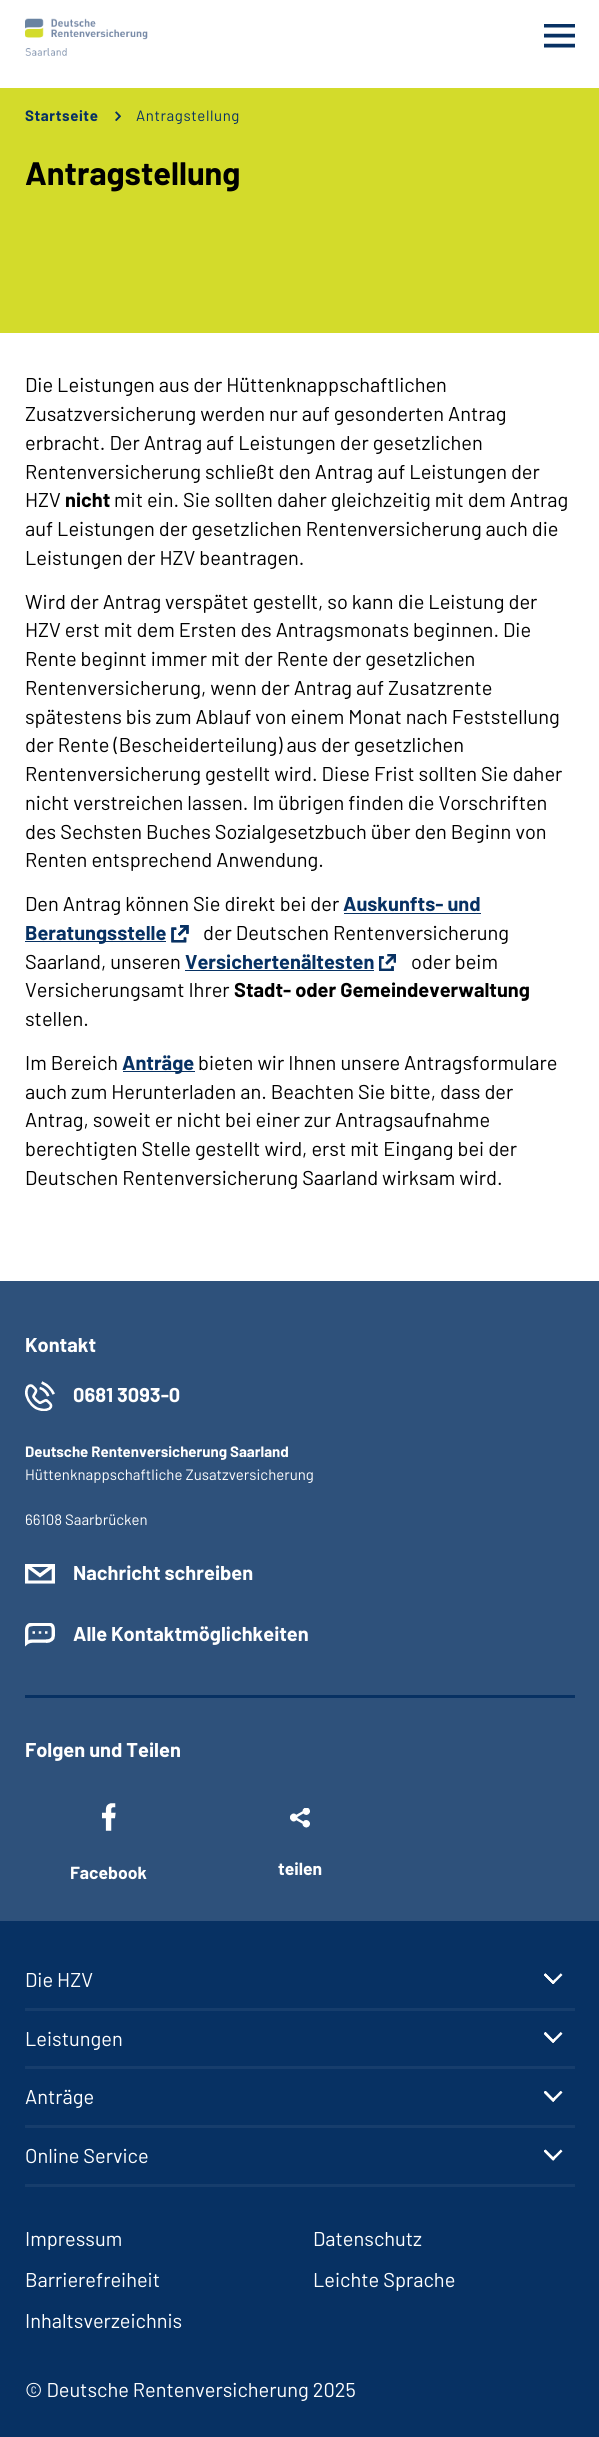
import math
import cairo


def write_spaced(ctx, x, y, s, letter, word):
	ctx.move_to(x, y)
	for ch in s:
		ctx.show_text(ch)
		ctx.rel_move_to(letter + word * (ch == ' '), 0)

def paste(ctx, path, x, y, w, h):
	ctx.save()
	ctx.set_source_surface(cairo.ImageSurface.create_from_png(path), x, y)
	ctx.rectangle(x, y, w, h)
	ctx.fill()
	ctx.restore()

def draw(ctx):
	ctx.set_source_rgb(1, 1, 1)
	ctx.paint()
	paste(ctx, 'media/1.png', 25, 18, 123, 38)
	paste(ctx, 'media/2.png', 544, 24, 31, 24)
	ctx.set_source_rgb(0.827, 0.859, 0.169)
	ctx.rectangle(0, 88, 599, 245)
	ctx.fill()
	ctx.select_font_face('Barlow', cairo.FONT_SLANT_NORMAL, cairo.FONT_WEIGHT_BOLD)
	ctx.set_font_size(15)
	ctx.set_source_rgb(0.031, 0.192, 0.388)
	write_spaced(ctx, 25, 121, 'Startseite', 0.6, 0)
	paste(ctx, 'media/3.png', 115, 111, 6, 10)
	ctx.select_font_face('Barlow')
	write_spaced(ctx, 136, 121, 'Antragstellung', 0.6, 0)
	ctx.select_font_face('Barlow', cairo.FONT_SLANT_NORMAL, cairo.FONT_WEIGHT_BOLD)
	ctx.set_font_size(32.5)
	ctx.set_source_rgb(0, 0, 0)
	ctx.move_to(25, 185)
	ctx.show_text('Antragstellung')
	ctx.select_font_face('Barlow')
	ctx.set_font_size(20)
	for x, y, s in [
		(25, 392, 'Die Leistungen aus der Hüttenknappschaftlichen'),
		(25, 421, 'Zusatzversicherung werden nur auf gesonderten Antrag'),
		(25, 450, 'erbracht. Der Antrag auf Leistungen der gesetzlichen'),
		(25, 479, 'Rentenversicherung schließt den Antrag auf Leistungen der'),
		(25, 507, 'HZV'),
	]:
		ctx.move_to(x, y)
		ctx.show_text(s)
	ctx.select_font_face('Barlow', cairo.FONT_SLANT_NORMAL, cairo.FONT_WEIGHT_BOLD)
	ctx.move_to(65, 507)
	ctx.show_text('nicht')
	ctx.select_font_face('Barlow')
	for x, y, s in [
		(114, 507, 'mit ein. Sie sollten daher gleichzeitig mit dem Antrag'),
		(25, 536, 'auf Leistungen der gesetzlichen Rentenversicherung auch die'),
		(25, 565, 'Leistungen der HZV beantragen.'),
		(25, 609, 'Wird der Antrag verspätet gestellt, so kann die Leistung der'),
		(25, 637, 'HZV erst mit dem Ersten des Antragsmonats beginnen. Die'),
		(25, 666, 'Rente beginnt immer mit der Rente der gesetzlichen'),
		(25, 695, 'Rentenversicherung, wenn der Antrag auf Zusatzrente'),
		(25, 724, 'spätestens bis zum Ablauf von einem Monat nach Feststellung'),
		(25, 752, 'der Rente (Bescheiderteilung) aus der gesetzlichen'),
		(25, 781, 'Rentenversicherung gestellt wird. Diese Frist sollten Sie daher'),
		(25, 810, 'nicht verstreichen lassen. Im übrigen finden die Vorschriften'),
		(25, 839, 'des Sechsten Buches Sozialgesetzbuch über den Beginn von'),
		(25, 867, 'Renten entsprechend Anwendung.'),
		(25, 911, 'Den Antrag können Sie direkt bei der'),
	]:
		ctx.move_to(x, y)
		ctx.show_text(s)
	ctx.select_font_face('Barlow', cairo.FONT_SLANT_NORMAL, cairo.FONT_WEIGHT_BOLD)
	ctx.set_source_rgb(0.031, 0.192, 0.388)
	ctx.move_to(343, 911)
	ctx.show_text('Auskunfts- und')
	ctx.rectangle(344, 913, 137, 1)
	ctx.fill()
	ctx.rectangle(25, 941, 141, 1)
	ctx.fill()
	ctx.move_to(25, 940)
	ctx.show_text('Beratungsstelle')
	paste(ctx, 'media/4.png', 171, 925, 18, 18)
	ctx.select_font_face('Barlow')
	ctx.set_source_rgb(0, 0, 0)
	ctx.move_to(203, 940)
	ctx.show_text('der Deutschen Rentenversicherung')
	ctx.move_to(25, 969)
	ctx.show_text('Saarland, unseren')
	ctx.select_font_face('Barlow', cairo.FONT_SLANT_NORMAL, cairo.FONT_WEIGHT_BOLD)
	ctx.set_source_rgb(0.031, 0.192, 0.388)
	ctx.move_to(185, 969)
	ctx.show_text('Versichertenältesten')
	ctx.rectangle(185, 970, 189, 1)
	ctx.fill()
	paste(ctx, 'media/5.png', 379, 954, 17, 17)
	ctx.select_font_face('Barlow')
	ctx.set_source_rgb(0, 0, 0)
	ctx.move_to(411, 969)
	ctx.show_text('oder beim')
	ctx.move_to(25, 997)
	ctx.show_text('Versicherungsamt Ihrer')
	ctx.select_font_face('Barlow', cairo.FONT_SLANT_NORMAL, cairo.FONT_WEIGHT_BOLD)
	ctx.move_to(234, 997)
	ctx.show_text('Stadt- oder Gemeindeverwaltung')
	ctx.select_font_face('Barlow')
	ctx.move_to(25, 1026)
	ctx.show_text('stellen.')
	ctx.move_to(25, 1070)
	ctx.show_text('Im Bereich')
	ctx.set_source_rgb(0.031, 0.192, 0.388)
	ctx.rectangle(123, 1071, 72, 1)
	ctx.fill()
	ctx.select_font_face('Barlow', cairo.FONT_SLANT_NORMAL, cairo.FONT_WEIGHT_BOLD)
	ctx.move_to(122, 1070)
	ctx.show_text('Anträge')
	ctx.select_font_face('Barlow')
	ctx.set_source_rgb(0, 0, 0)
	for x, y, s in [
		(198, 1070, 'bieten wir Ihnen unsere Antragsformulare'),
		(25, 1099, 'auch zum Herunterladen an. Beachten Sie bitte, dass der'),
		(25, 1127, 'Antrag, soweit er nicht bei einer zur Antragsaufnahme'),
		(25, 1156, 'berechtigten Stelle gestellt wird, erst mit Eingang bei der'),
		(25, 1185, 'Deutschen Rentenversicherung Saarland wirksam wird.'),
	]:
		ctx.move_to(x, y)
		ctx.show_text(s)
	ctx.set_source_rgb(0.18, 0.318, 0.482)
	ctx.rectangle(0, 1281, 599, 640)
	ctx.fill()
	ctx.set_source_rgb(0.031, 0.192, 0.388)
	ctx.rectangle(25, 1695, 550, 3)
	ctx.fill()
	ctx.select_font_face('Barlow', cairo.FONT_SLANT_NORMAL, cairo.FONT_WEIGHT_BOLD)
	ctx.set_source_rgb(1, 1, 1)
	ctx.move_to(25, 1352)
	ctx.show_text('Kontakt')
	paste(ctx, 'media/6.png', 25, 1381, 30, 30)
	ctx.move_to(73, 1402)
	ctx.show_text('0681 3093-0')
	ctx.set_font_size(15)
	ctx.move_to(25, 1457)
	ctx.show_text('Deutsche Rentenversicherung Saarland')
	ctx.select_font_face('Barlow')
	ctx.move_to(25, 1480)
	ctx.show_text('Hüttenknappschaftliche Zusatzversicherung')
	ctx.move_to(25, 1525)
	ctx.show_text('66108 Saarbrücken')
	paste(ctx, 'media/7.png', 25, 1564, 30, 20)
	ctx.select_font_face('Barlow', cairo.FONT_SLANT_NORMAL, cairo.FONT_WEIGHT_BOLD)
	ctx.set_font_size(20)
	ctx.move_to(73, 1580)
	ctx.show_text('Nachricht schreiben')
	paste(ctx, 'media/8.png', 25, 1623, 30, 24)
	ctx.move_to(73, 1641)
	ctx.show_text('Alle Kontaktmöglichkeiten')
	ctx.move_to(25, 1757)
	ctx.show_text('Folgen und Teilen')
	paste(ctx, 'media/9.png', 102, 1803, 14, 28)
	ctx.set_font_size(17.5)
	ctx.move_to(70, 1879)
	ctx.show_text('Facebook')
	paste(ctx, 'media/10.png', 290, 1808, 20, 20)
	ctx.move_to(278, 1875)
	ctx.show_text('teilen')
	ctx.set_source_rgb(0.031, 0.192, 0.388)
	ctx.rectangle(0, 1921, 599, 516)
	ctx.fill()
	ctx.set_source_rgb(0.086, 0.239, 0.424)
	ctx.rectangle(25, 2008, 550, 3)
	ctx.fill()
	ctx.select_font_face('Barlow')
	ctx.set_font_size(20)
	ctx.set_source_rgb(1, 1, 1)
	ctx.move_to(25, 1987)
	ctx.show_text('Die HZV')
	paste(ctx, 'media/11.png', 544, 1973, 19, 11)
	ctx.set_source_rgb(0.086, 0.239, 0.424)
	ctx.rectangle(25, 2066, 550, 3)
	ctx.fill()
	ctx.set_source_rgb(1, 1, 1)
	ctx.move_to(25, 2046)
	ctx.show_text('Leistungen')
	paste(ctx, 'media/12.png', 544, 2032, 19, 11)
	ctx.set_source_rgb(0.086, 0.239, 0.424)
	ctx.rectangle(25, 2125, 550, 3)
	ctx.fill()
	ctx.set_source_rgb(1, 1, 1)
	ctx.move_to(25, 2104)
	ctx.show_text('Anträge')
	paste(ctx, 'media/13.png', 544, 2091, 19, 11)
	ctx.set_source_rgb(0.086, 0.239, 0.424)
	ctx.rectangle(25, 2184, 550, 3)
	ctx.fill()
	ctx.set_source_rgb(1, 1, 1)
	ctx.move_to(25, 2163)
	ctx.show_text('Online Service')
	paste(ctx, 'media/14.png', 544, 2149, 19, 12)
	for x, y, s in [
		(25, 2246, 'Impressum'),
		(313, 2246, 'Datenschutz'),
		(25, 2287, 'Barrierefreiheit'),
		(313, 2287, 'Leichte Sprache'),
		(25, 2328, 'Inhaltsverzeichnis'),
		(25, 2397, '© Deutsche Rentenversicherung 2025'),
	]:
		ctx.move_to(x, y)
		ctx.show_text(s)


surface = cairo.ImageSurface(cairo.FORMAT_RGB24, 599, 2437)
ctx = cairo.Context(surface)
options = cairo.FontOptions()
options.set_hint_metrics(cairo.HINT_METRICS_OFF)
options.set_hint_style(cairo.HINT_STYLE_NONE)
ctx.set_font_options(options)
ctx.set_miter_limit(4)
draw(ctx)
surface.write_to_png('image.png')
